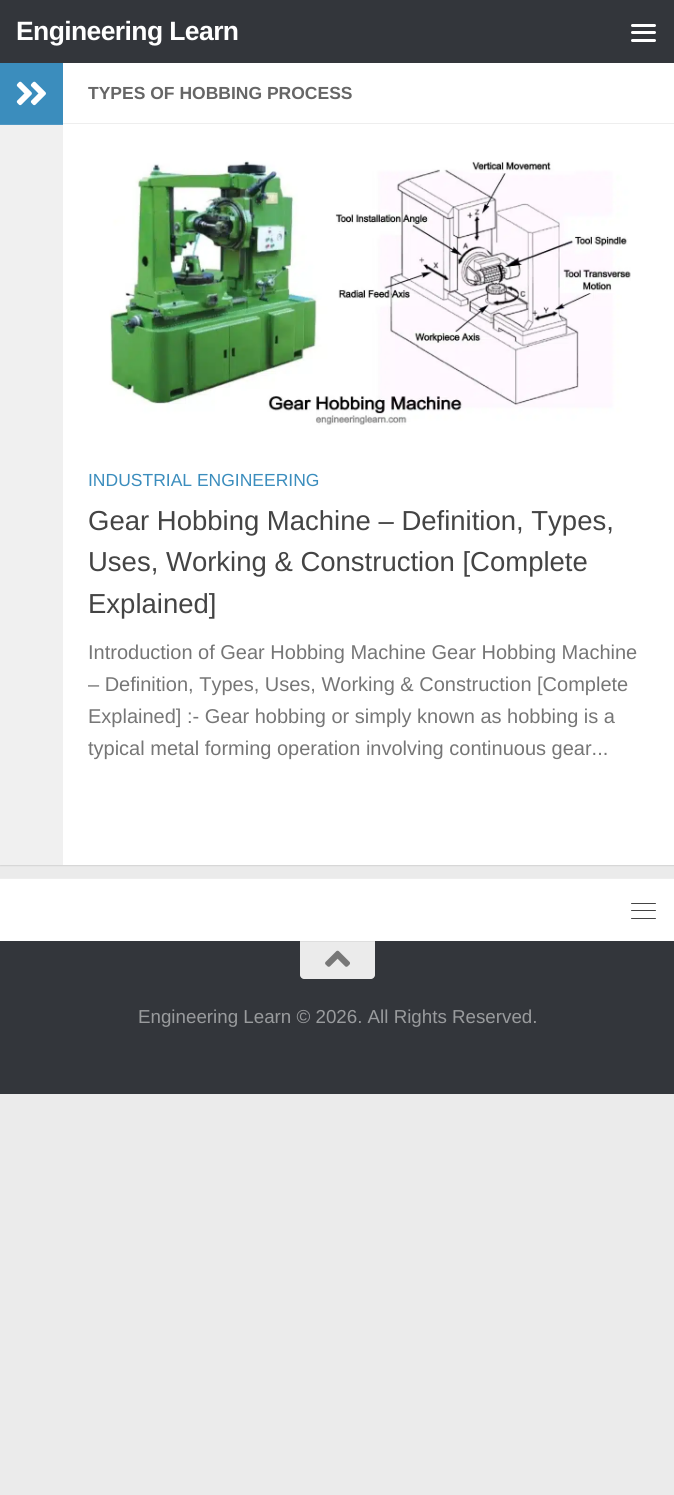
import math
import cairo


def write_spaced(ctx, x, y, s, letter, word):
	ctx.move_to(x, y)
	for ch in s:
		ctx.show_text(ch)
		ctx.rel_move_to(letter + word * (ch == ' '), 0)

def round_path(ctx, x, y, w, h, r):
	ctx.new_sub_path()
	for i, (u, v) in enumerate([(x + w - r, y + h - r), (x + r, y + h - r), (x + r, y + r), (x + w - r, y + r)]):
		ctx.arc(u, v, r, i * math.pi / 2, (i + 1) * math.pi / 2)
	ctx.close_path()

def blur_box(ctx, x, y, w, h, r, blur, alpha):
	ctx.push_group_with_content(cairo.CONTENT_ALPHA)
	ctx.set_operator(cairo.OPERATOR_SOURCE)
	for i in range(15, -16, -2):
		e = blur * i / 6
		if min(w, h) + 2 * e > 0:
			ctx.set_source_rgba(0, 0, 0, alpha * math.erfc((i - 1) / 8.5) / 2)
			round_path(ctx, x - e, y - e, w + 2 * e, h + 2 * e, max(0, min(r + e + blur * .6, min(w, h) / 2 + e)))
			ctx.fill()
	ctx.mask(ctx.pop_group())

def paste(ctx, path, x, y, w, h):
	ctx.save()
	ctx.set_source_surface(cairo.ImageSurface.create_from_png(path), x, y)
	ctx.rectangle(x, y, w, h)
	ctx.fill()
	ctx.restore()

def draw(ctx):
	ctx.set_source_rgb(0.918, 0.918, 0.918)
	ctx.paint()
	ctx.set_source_rgb(0, 0, 0)
	blur_box(ctx, 0, 64, 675, 802, 0, 0.5, 0.1)
	ctx.set_source_rgb(0.2, 0.212, 0.231)
	ctx.rectangle(0, 0, 674, 63)
	ctx.fill()
	ctx.select_font_face('Liberation Sans', cairo.FONT_SLANT_NORMAL, cairo.FONT_WEIGHT_BOLD)
	ctx.set_font_size(26.5)
	ctx.set_source_rgb(1, 1, 1)
	write_spaced(ctx, 16, 40, 'Engineering Learn', -0.6, 0)
	round_path(ctx, 631, 24, 25, 3, 1.5)
	ctx.fill()
	round_path(ctx, 631, 31, 25, 3, 1.5)
	ctx.fill()
	round_path(ctx, 631, 39, 25, 3, 1.5)
	ctx.fill()
	ctx.rectangle(63, 63, 611, 802)
	ctx.fill()
	ctx.set_source_rgb(0.941, 0.941, 0.941)
	ctx.rectangle(0, 125, 63, 740)
	ctx.fill()
	ctx.set_source_rgb(0.231, 0.553, 0.741)
	ctx.rectangle(0, 63, 63, 61)
	ctx.fill()
	ctx.set_source_rgb(0.31, 0.596, 0.769)
	ctx.rectangle(0, 124, 63, 1)
	ctx.fill()
	paste(ctx, 'media/1.png', 16, 81, 30, 25)
	ctx.set_source_rgb(0.933, 0.933, 0.933)
	ctx.rectangle(63, 123, 611, 1)
	ctx.fill()
	ctx.set_font_size(17.5)
	ctx.set_source_rgb(0.4, 0.4, 0.4)
	ctx.move_to(88, 99)
	ctx.show_text('TYPES OF HOBBING PROCESS')
	paste(ctx, 'media/2.png', 109, 160, 522, 265)
	ctx.select_font_face('Liberation Sans')
	ctx.set_source_rgb(0.231, 0.553, 0.741)
	ctx.move_to(88, 486)
	ctx.show_text('INDUSTRIAL ENGINEERING')
	ctx.set_font_size(27.5)
	ctx.set_source_rgb(0.267, 0.267, 0.267)
	for x, y, s in [
		(88, 530, 'Gear Hobbing Machine – Definition, Types,'),
		(88, 571, 'Uses, Working & Construction [Complete'),
		(88, 613, 'Explained]'),
	]:
		ctx.move_to(x, y)
		ctx.show_text(s)
	ctx.set_font_size(20)
	ctx.set_source_rgb(0.463, 0.463, 0.463)
	for x, y, s in [
		(88, 659, 'Introduction of Gear Hobbing Machine Gear Hobbing Machine'),
		(88, 691, '– Definition, Types, Uses, Working & Construction [Complete'),
		(88, 723, 'Explained] :- Gear hobbing or simply known as hobbing is a'),
		(88, 755, 'typical metal forming operation involving continuous gear...'),
	]:
		ctx.move_to(x, y)
		ctx.show_text(s)
	ctx.set_source_rgb(1, 1, 1)
	ctx.rectangle(0, 879, 674, 62)
	ctx.fill()
	ctx.set_source_rgb(0.933, 0.933, 0.933)
	ctx.rectangle(0, 878, 674, 1)
	ctx.fill()
	ctx.set_source_rgb(0.267, 0.267, 0.267)
	round_path(ctx, 631, 903, 25, 1, 0.5)
	ctx.fill()
	round_path(ctx, 631, 910, 25, 1, 0.5)
	ctx.fill()
	round_path(ctx, 631, 918, 25, 1, 0.5)
	ctx.fill()
	ctx.set_source_rgb(0.2, 0.212, 0.231)
	ctx.rectangle(0, 941, 674, 153)
	ctx.fill()
	ctx.set_source_rgb(0.918, 0.918, 0.918)
	ctx.new_path()
	ctx.move_to(300, 941)
	ctx.line_to(375, 941)
	ctx.line_to(375, 975)
	ctx.curve_to(375, 977, 373, 979, 371, 979)
	ctx.line_to(304, 979)
	ctx.curve_to(302, 979, 300, 977, 300, 975)
	ctx.close_path()
	ctx.fill()
	ctx.set_source_rgb(0.871, 0.871, 0.871)
	ctx.rectangle(300, 941, 75, 1)
	ctx.fill()
	paste(ctx, 'media/3.png', 325, 950, 25, 17)
	ctx.set_font_size(18.75)
	ctx.set_source_rgb(0.6, 0.608, 0.616)
	ctx.move_to(138, 1023)
	ctx.show_text('Engineering Learn © 2026. All Rights Reserved.')


surface = cairo.ImageSurface(cairo.FORMAT_RGB24, 674, 1495)
ctx = cairo.Context(surface)
options = cairo.FontOptions()
options.set_hint_metrics(cairo.HINT_METRICS_OFF)
options.set_hint_style(cairo.HINT_STYLE_NONE)
ctx.set_font_options(options)
ctx.set_miter_limit(4)
draw(ctx)
surface.write_to_png('image.png')
